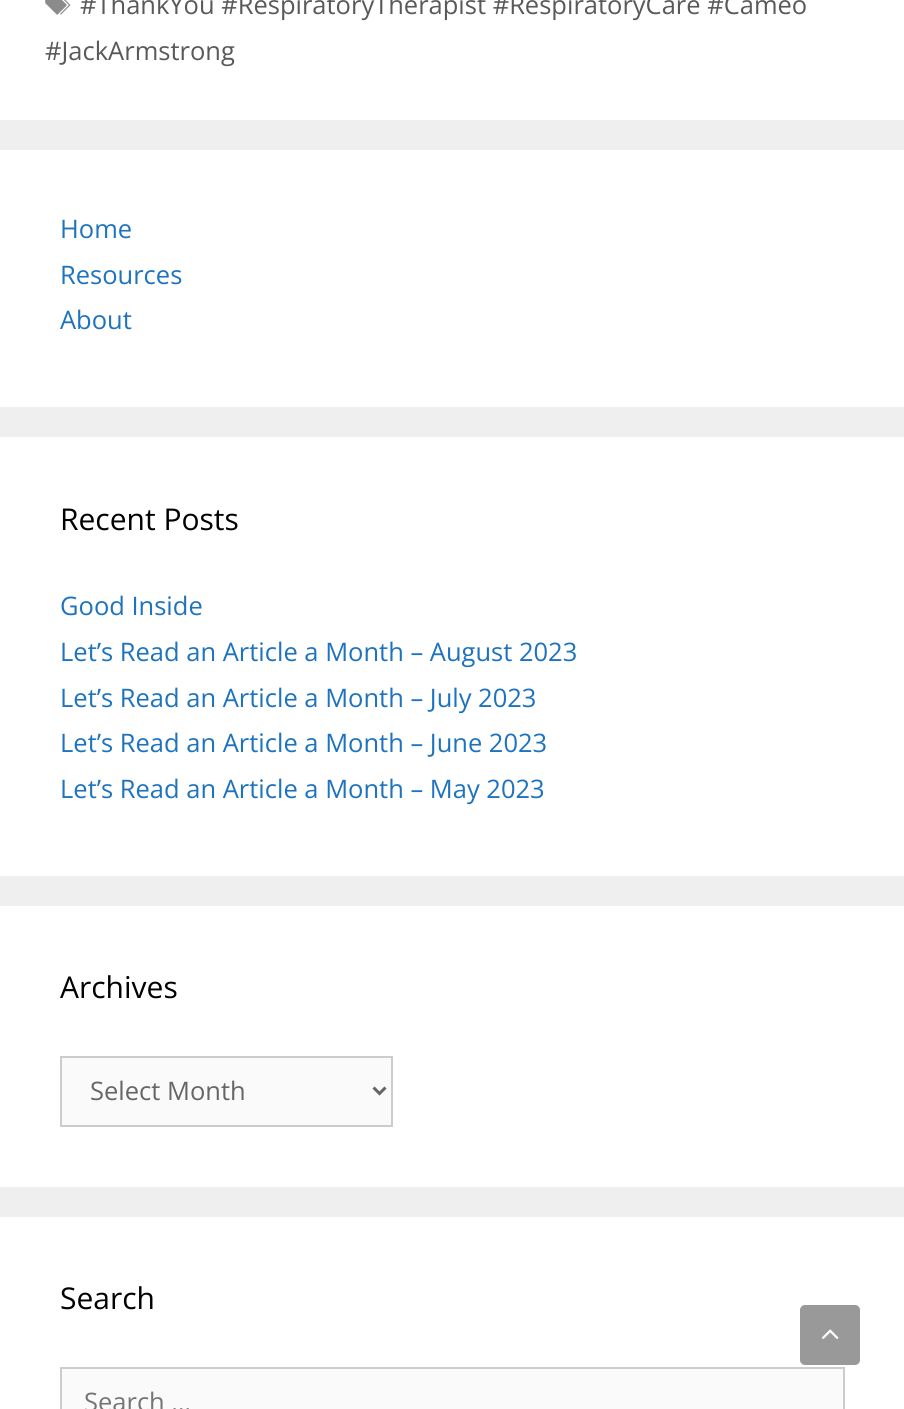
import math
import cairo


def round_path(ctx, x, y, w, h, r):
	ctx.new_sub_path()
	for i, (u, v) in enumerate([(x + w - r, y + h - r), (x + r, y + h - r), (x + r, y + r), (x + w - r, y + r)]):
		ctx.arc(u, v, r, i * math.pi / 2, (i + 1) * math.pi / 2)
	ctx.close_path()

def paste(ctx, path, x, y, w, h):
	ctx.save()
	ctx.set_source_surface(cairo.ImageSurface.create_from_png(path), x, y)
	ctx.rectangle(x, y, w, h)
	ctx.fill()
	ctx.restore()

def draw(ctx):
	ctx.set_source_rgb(0.937, 0.937, 0.937)
	ctx.paint()
	ctx.set_source_rgb(1, 1, 1)
	ctx.rectangle(0, 0, 904, 120)
	ctx.fill()
	paste(ctx, 'media/1.png', 45, 0, 26, 15)
	ctx.select_font_face('Open Sans')
	ctx.set_font_size(25.5)
	ctx.set_source_rgb(0.349, 0.349, 0.349)
	ctx.move_to(80, 14)
	ctx.show_text('#ThankYou #RespiratoryTherapist #RespiratoryCare #Cameo')
	ctx.move_to(45, 60)
	ctx.show_text('#JackArmstrong')
	ctx.set_source_rgb(1, 1, 1)
	ctx.rectangle(0, 150, 904, 257)
	ctx.fill()
	ctx.set_source_rgb(0.118, 0.451, 0.745)
	for x, y, s in [
		(60, 238, 'Home'),
		(60, 284, 'Resources'),
		(60, 329, 'About'),
	]:
		ctx.move_to(x, y)
		ctx.show_text(s)
	ctx.set_source_rgb(1, 1, 1)
	ctx.rectangle(0, 437, 904, 439)
	ctx.fill()
	ctx.set_font_size(30)
	ctx.set_source_rgb(0, 0, 0)
	ctx.move_to(60, 530)
	ctx.show_text('Recent Posts')
	ctx.set_font_size(25.5)
	ctx.set_source_rgb(0.118, 0.451, 0.745)
	for x, y, s in [
		(60, 615, 'Good Inside'),
		(60, 661, 'Let’s Read an Article a Month – August 2023'),
		(60, 707, 'Let’s Read an Article a Month – July 2023'),
		(60, 752, 'Let’s Read an Article a Month – June 2023'),
		(60, 798, 'Let’s Read an Article a Month – May 2023'),
	]:
		ctx.move_to(x, y)
		ctx.show_text(s)
	ctx.set_source_rgb(1, 1, 1)
	ctx.rectangle(0, 906, 904, 281)
	ctx.fill()
	ctx.set_font_size(30)
	ctx.set_source_rgb(0, 0, 0)
	ctx.move_to(60, 998)
	ctx.show_text('Archives')
	ctx.set_source_rgb(0.98, 0.98, 0.98)
	ctx.rectangle(61, 1057, 331, 69)
	ctx.fill_preserve()
	ctx.set_source_rgb(0.8, 0.8, 0.8)
	ctx.stroke()
	ctx.new_path()
	ctx.move_to(373.5, 1087.5)
	ctx.line_to(379.5, 1093.5)
	ctx.line_to(385.5, 1087.5)
	ctx.set_source_rgb(0.4, 0.4, 0.4)
	ctx.set_line_width(3)
	ctx.stroke()
	ctx.set_font_size(25.5)
	ctx.move_to(90, 1100)
	ctx.show_text('Select Month')
	ctx.set_source_rgb(1, 1, 1)
	ctx.rectangle(0, 1217, 904, 192)
	ctx.fill()
	ctx.set_font_size(30)
	ctx.set_source_rgb(0, 0, 0)
	ctx.move_to(60, 1309)
	ctx.show_text('Search')
	ctx.set_source_rgb(0.98, 0.98, 0.98)
	ctx.rectangle(61, 1368, 783, 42)
	ctx.fill_preserve()
	ctx.set_source_rgb(0.8, 0.8, 0.8)
	ctx.set_line_width(2)
	ctx.stroke()
	ctx.set_font_size(25.5)
	ctx.set_source_rgb(0.459, 0.459, 0.459)
	ctx.move_to(84, 1411)
	ctx.show_text('Search …')
	ctx.set_source_rgb(0.6, 0.6, 0.6)
	round_path(ctx, 800, 1305, 60, 60, 5)
	ctx.fill()
	paste(ctx, 'media/2.png', 821, 1329, 18, 10)


surface = cairo.ImageSurface(cairo.FORMAT_RGB24, 904, 1409)
ctx = cairo.Context(surface)
options = cairo.FontOptions()
options.set_hint_metrics(cairo.HINT_METRICS_OFF)
options.set_hint_style(cairo.HINT_STYLE_NONE)
ctx.set_font_options(options)
ctx.set_miter_limit(4)
draw(ctx)
surface.write_to_png('image.png')
